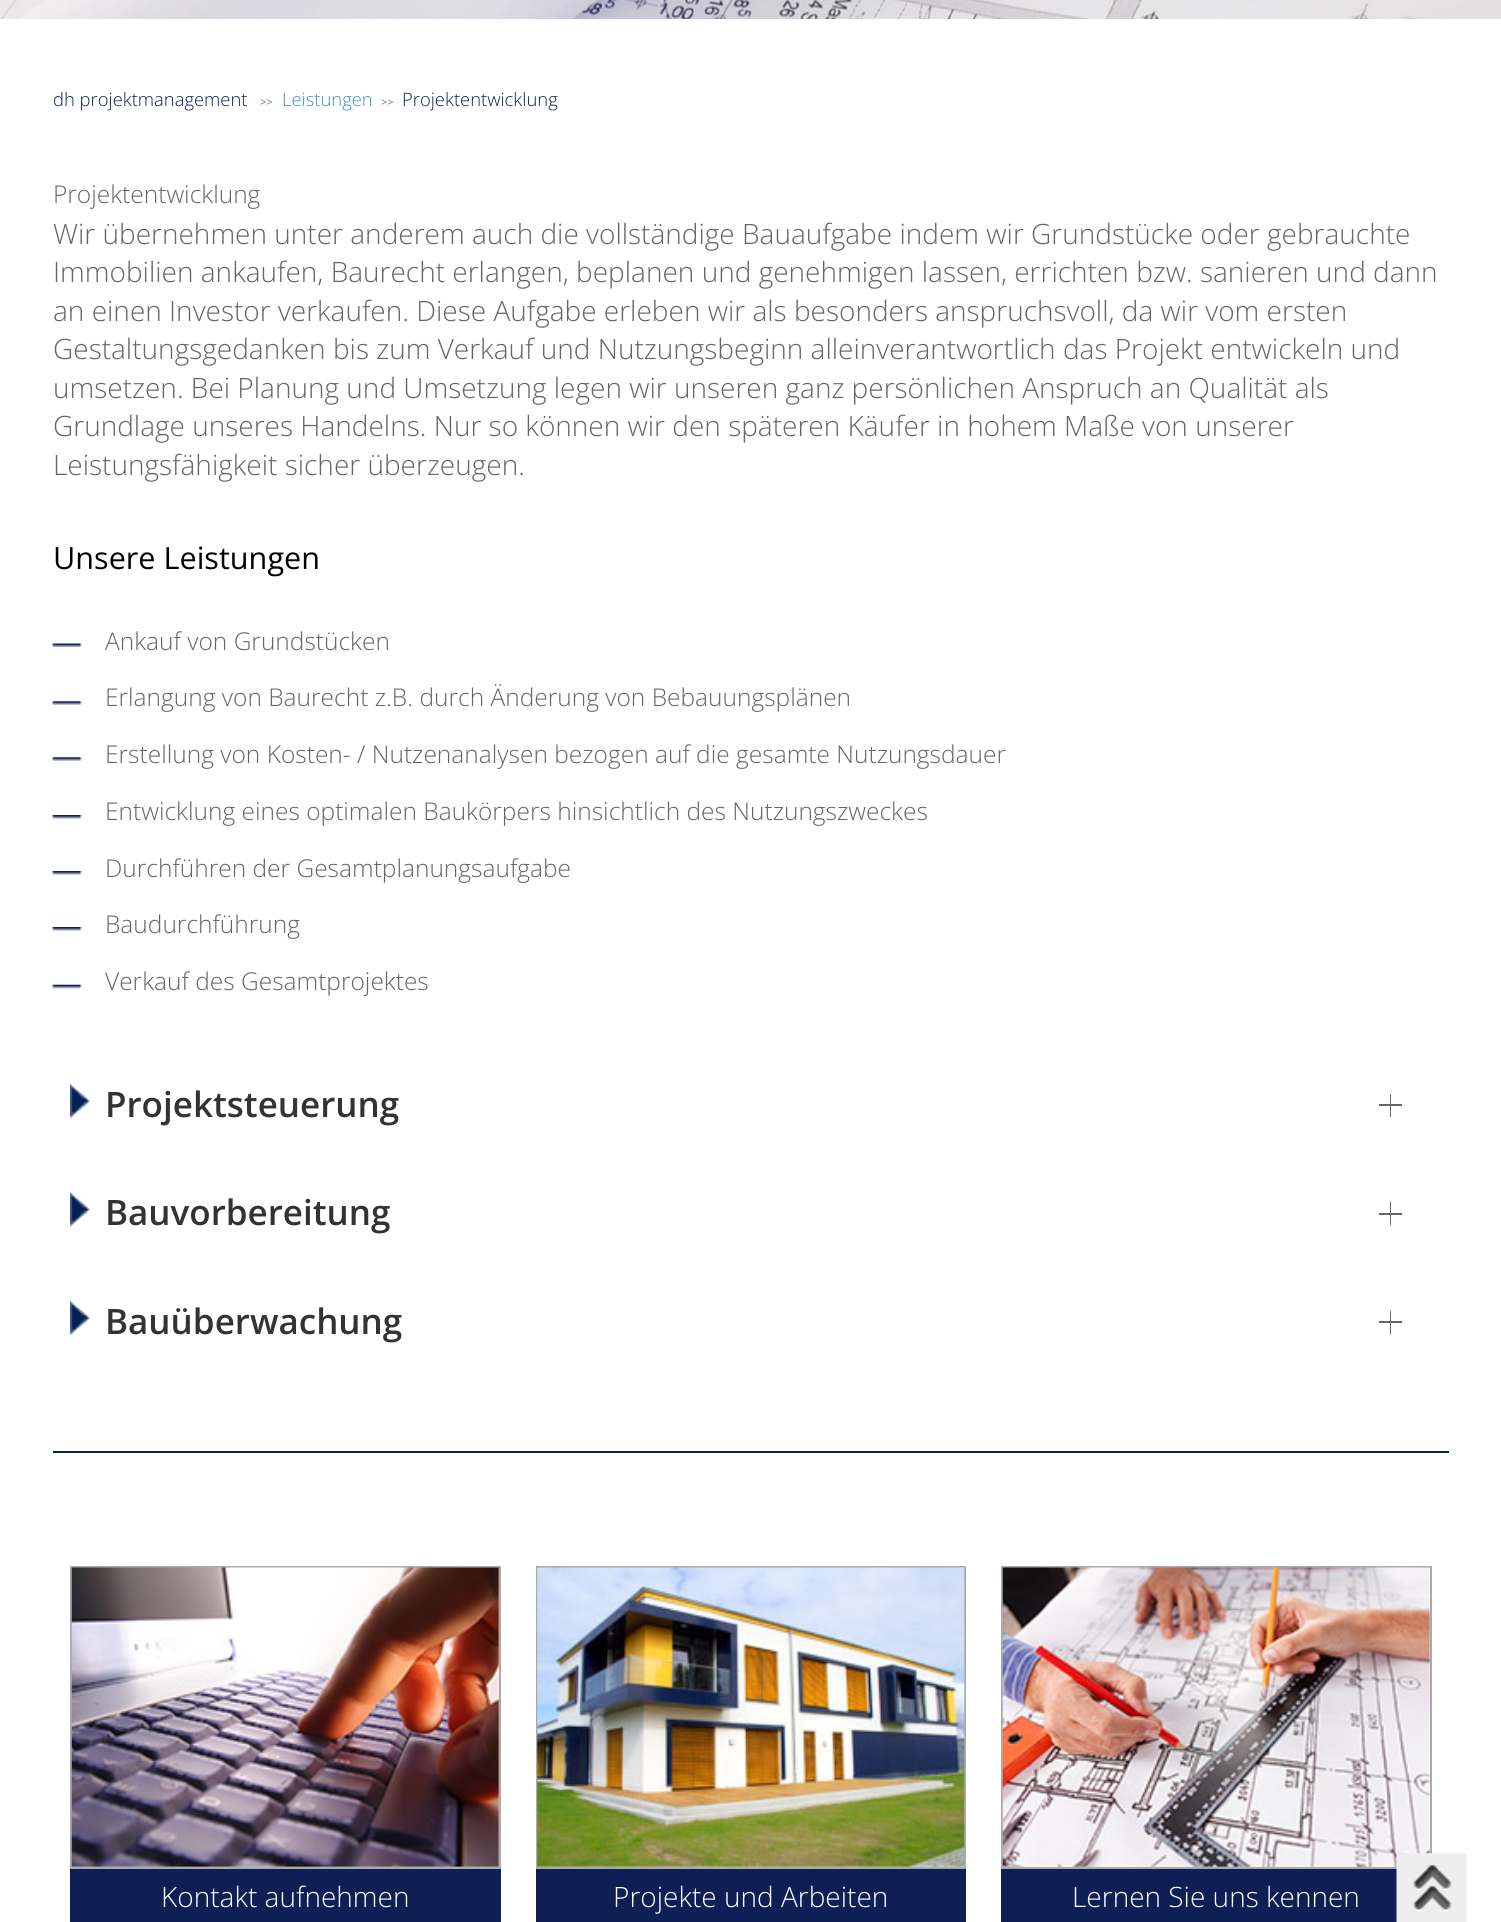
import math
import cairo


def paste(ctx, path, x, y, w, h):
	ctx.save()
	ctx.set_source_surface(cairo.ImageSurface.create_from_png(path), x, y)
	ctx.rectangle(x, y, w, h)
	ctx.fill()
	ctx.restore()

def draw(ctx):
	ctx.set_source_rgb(1, 1, 1)
	ctx.paint()
	paste(ctx, 'media/1.png', 0, 0, 1501, 19)
	ctx.select_font_face('Open Sans Light')
	ctx.set_font_size(18.4)
	ctx.set_source_rgb(0.051, 0.122, 0.329)
	ctx.move_to(53, 106)
	ctx.show_text('dh projektmanagement')
	ctx.set_font_size(11)
	ctx.move_to(260, 106)
	ctx.show_text('>>')
	ctx.set_font_size(18.4)
	ctx.set_source_rgb(0.259, 0.545, 0.792)
	ctx.move_to(282, 106)
	ctx.show_text('Leistungen')
	ctx.set_font_size(11)
	ctx.set_source_rgb(0.051, 0.122, 0.329)
	ctx.move_to(381, 106)
	ctx.show_text('>>')
	ctx.set_font_size(18.4)
	ctx.move_to(402, 106)
	ctx.show_text('Projektentwicklung')
	ctx.set_font_size(24.5)
	ctx.set_source_rgb(0.396, 0.396, 0.396)
	ctx.move_to(53, 203)
	ctx.show_text('Projektentwicklung')
	ctx.set_font_size(28)
	for x, y, s in [
		(53, 244, 'Wir übernehmen unter anderem auch die vollständige Bauaufgabe indem wir Grundstücke oder gebrauchte'),
		(53, 282, 'Immobilien ankaufen, Baurecht erlangen, beplanen und genehmigen lassen, errichten bzw. sanieren und dann'),
		(53, 321, 'an einen Investor verkaufen. Diese Aufgabe erleben wir als besonders anspruchsvoll, da wir vom ersten'),
		(53, 359, 'Gestaltungsgedanken bis zum Verkauf und Nutzungsbeginn alleinverantwortlich das Projekt entwickeln und'),
		(53, 398, 'umsetzen. Bei Planung und Umsetzung legen wir unseren ganz persönlichen Anspruch an Qualität als'),
		(53, 436, 'Grundlage unseres Handelns. Nur so können wir den späteren Käufer in hohem Maße von unserer'),
		(53, 475, 'Leistungsfähigkeit sicher überzeugen.'),
	]:
		ctx.move_to(x, y)
		ctx.show_text(s)
	ctx.select_font_face('Open Sans')
	ctx.set_font_size(30.6)
	ctx.set_source_rgb(0, 0, 0)
	ctx.move_to(53, 569)
	ctx.show_text('Unsere Leistungen')
	paste(ctx, 'media/2.png', 52, 643, 31, 4)
	ctx.select_font_face('Open Sans Light')
	ctx.set_font_size(24.5)
	ctx.set_source_rgb(0.396, 0.396, 0.396)
	ctx.move_to(105, 650)
	ctx.show_text('Ankauf von Grundstücken')
	paste(ctx, 'media/3.png', 52, 701, 31, 4)
	ctx.move_to(105, 706)
	ctx.show_text('Erlangung von Baurecht z.B. durch Änderung von Bebauungsplänen')
	paste(ctx, 'media/3.png', 52, 757, 31, 4)
	ctx.move_to(105, 763)
	ctx.show_text('Erstellung von Kosten- / Nutzenanalysen bezogen auf die gesamte Nutzungsdauer')
	paste(ctx, 'media/4.png', 52, 815, 31, 4)
	ctx.move_to(105, 820)
	ctx.show_text('Entwicklung eines optimalen Baukörpers hinsichtlich des Nutzungszweckes')
	paste(ctx, 'media/4.png', 52, 871, 31, 4)
	ctx.move_to(105, 877)
	ctx.show_text('Durchführen der Gesamtplanungsaufgabe')
	paste(ctx, 'media/4.png', 52, 927, 31, 4)
	ctx.move_to(105, 933)
	ctx.show_text('Baudurchführung')
	paste(ctx, 'media/5.png', 52, 984, 31, 5)
	ctx.move_to(105, 990)
	ctx.show_text('Verkauf des Gesamtprojektes')
	paste(ctx, 'media/6.png', 70, 1084, 20, 34)
	ctx.select_font_face('Open Sans SemiBold')
	ctx.set_font_size(35)
	ctx.set_source_rgb(0.2, 0.2, 0.2)
	ctx.move_to(105, 1117)
	ctx.show_text('Projektsteuerung')
	ctx.set_source_rgb(0.4, 0.4, 0.4)
	ctx.rectangle(1379, 1104, 23, 2)
	ctx.fill()
	ctx.rectangle(1390, 1094, 1, 23)
	ctx.fill()
	paste(ctx, 'media/7.png', 70, 1193, 20, 34)
	ctx.set_source_rgb(0.2, 0.2, 0.2)
	ctx.move_to(105, 1225)
	ctx.show_text('Bauvorbereitung')
	ctx.set_source_rgb(0.4, 0.4, 0.4)
	ctx.rectangle(1379, 1213, 23, 2)
	ctx.fill()
	ctx.rectangle(1390, 1202, 1, 23)
	ctx.fill()
	paste(ctx, 'media/8.png', 70, 1301, 20, 34)
	ctx.set_source_rgb(0.2, 0.2, 0.2)
	ctx.move_to(105, 1334)
	ctx.show_text('Bauüberwachung')
	ctx.set_source_rgb(0.4, 0.4, 0.4)
	ctx.rectangle(1379, 1321, 23, 2)
	ctx.rectangle(1390, 1311, 1, 23)
	ctx.fill()
	ctx.set_source_rgb(0.051, 0.122, 0.329)
	ctx.rectangle(53, 1451, 1396, 2)
	ctx.fill()
	ctx.rectangle(71, 1567, 429, 301)
	ctx.set_source_rgb(0.667, 0.667, 0.667)
	ctx.stroke()
	paste(ctx, 'media/9.png', 71, 1567, 428, 300)
	ctx.set_source_rgb(0.051, 0.122, 0.329)
	ctx.rectangle(70, 1869, 431, 53)
	ctx.fill()
	ctx.select_font_face('Open Sans Light')
	ctx.set_font_size(28)
	ctx.set_source_rgb(1, 1, 1)
	ctx.move_to(161, 1907)
	ctx.show_text('Kontakt aufnehmen')
	ctx.rectangle(537, 1567, 428, 301)
	ctx.set_source_rgb(0.667, 0.667, 0.667)
	ctx.stroke()
	paste(ctx, 'media/10.png', 537, 1567, 428, 300)
	ctx.set_source_rgb(0.051, 0.122, 0.329)
	ctx.rectangle(536, 1869, 430, 53)
	ctx.fill()
	ctx.set_source_rgb(1, 1, 1)
	ctx.move_to(613, 1907)
	ctx.show_text('Projekte und Arbeiten')
	ctx.rectangle(1002, 1567, 429, 301)
	ctx.set_source_rgb(0.667, 0.667, 0.667)
	ctx.stroke()
	paste(ctx, 'media/11.png', 1002, 1567, 428, 300)
	ctx.set_source_rgb(0.051, 0.122, 0.329)
	ctx.rectangle(1001, 1869, 396, 53)
	ctx.fill()
	ctx.set_source_rgb(1, 1, 1)
	ctx.move_to(1072, 1907)
	ctx.show_text('Lernen Sie uns kennen')
	paste(ctx, 'media/12.png', 1396, 1853, 71, 69)


surface = cairo.ImageSurface(cairo.FORMAT_RGB24, 1501, 1922)
ctx = cairo.Context(surface)
options = cairo.FontOptions()
options.set_hint_metrics(cairo.HINT_METRICS_OFF)
options.set_hint_style(cairo.HINT_STYLE_NONE)
ctx.set_font_options(options)
ctx.set_miter_limit(4)
draw(ctx)
surface.write_to_png('image.png')
